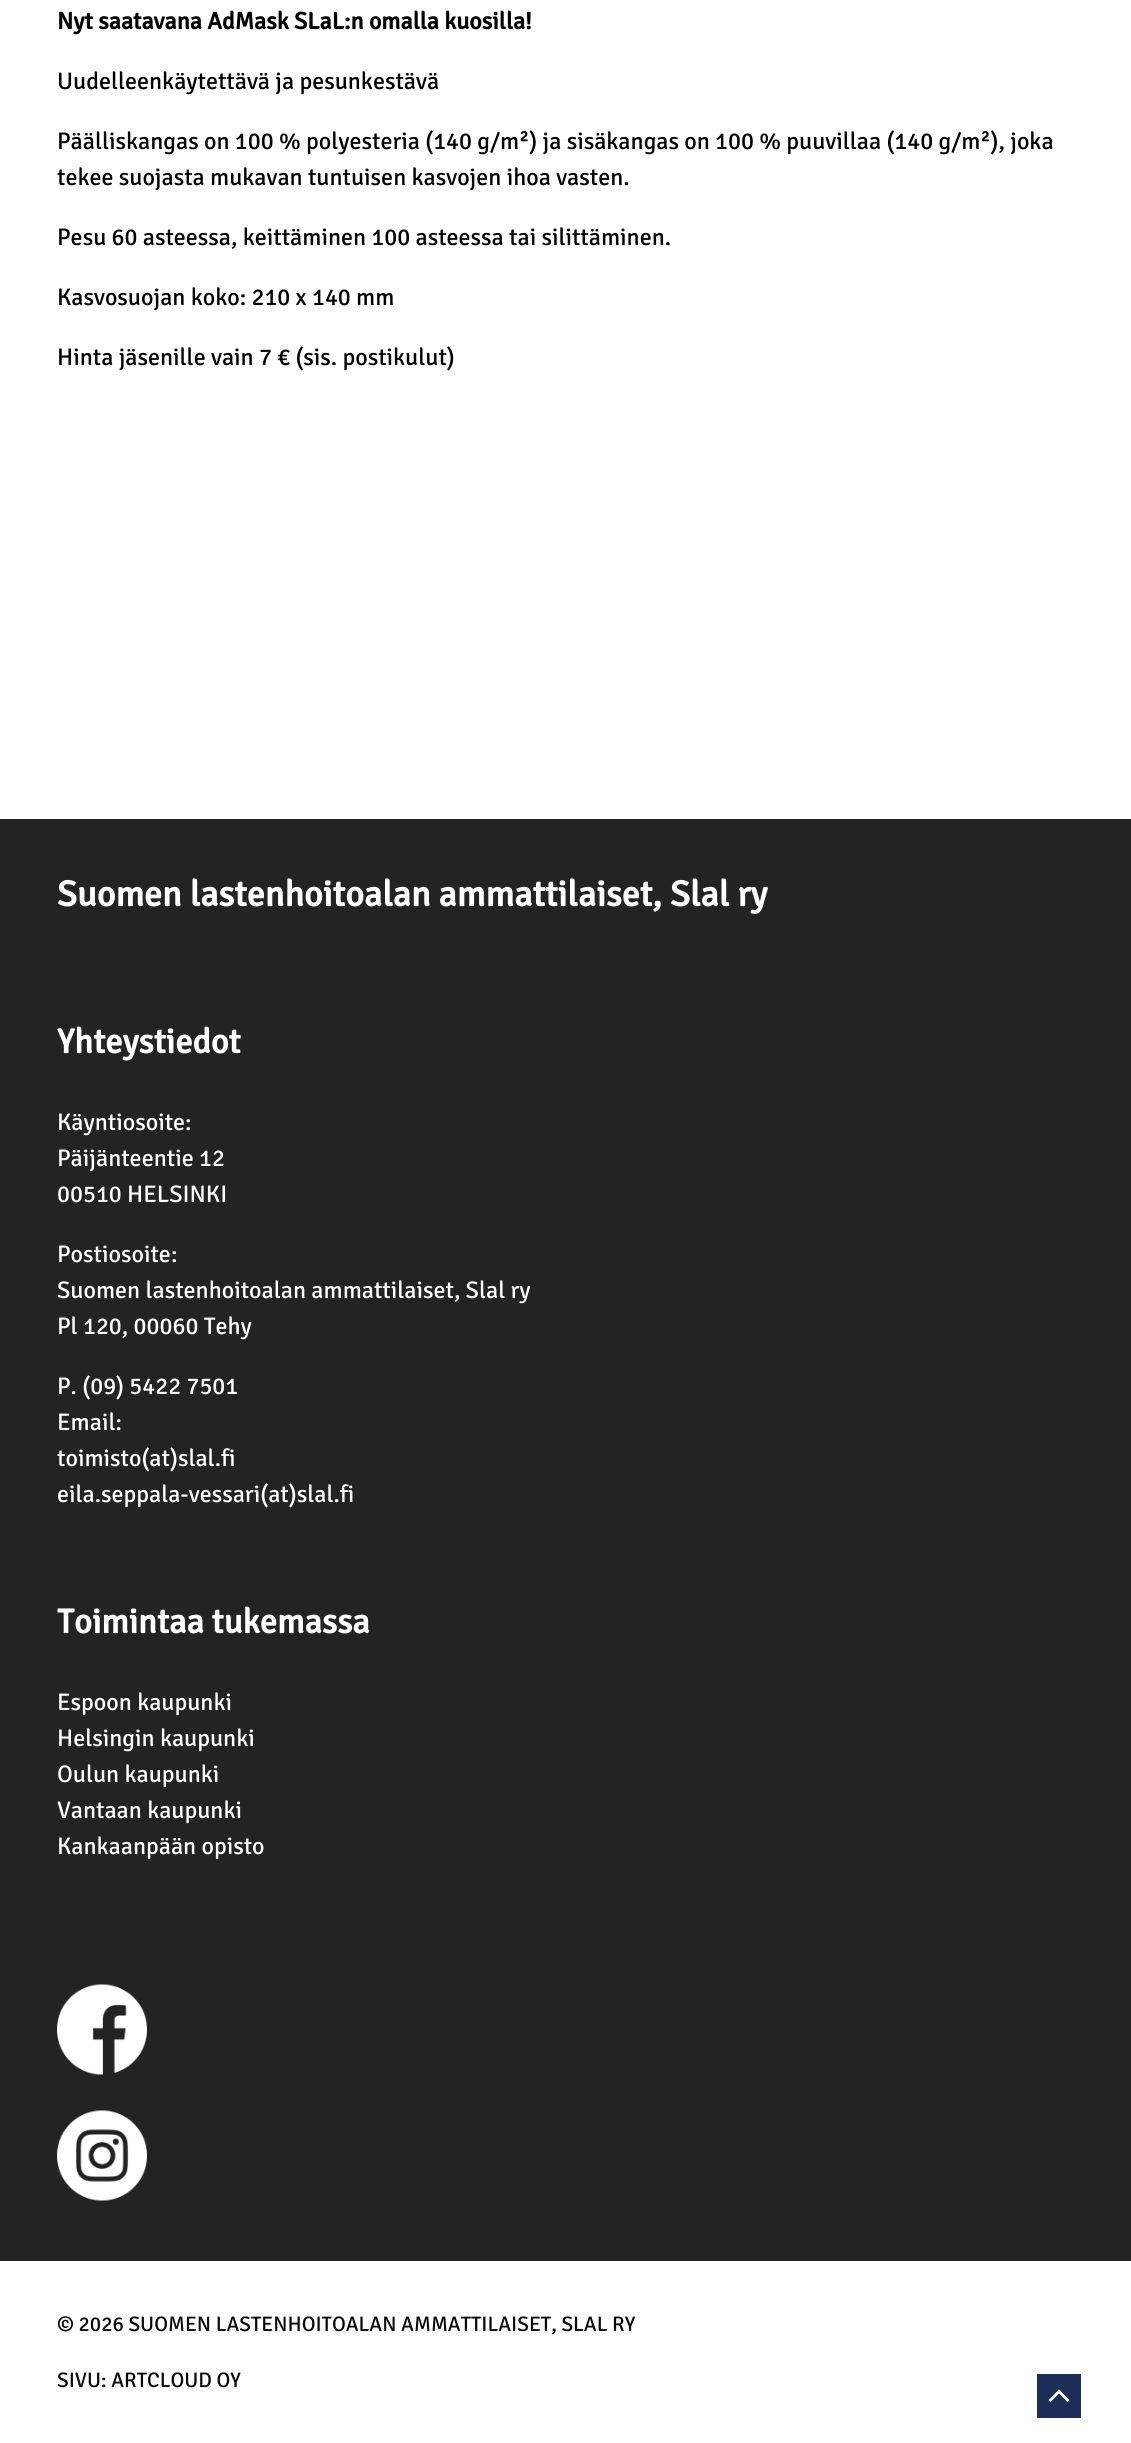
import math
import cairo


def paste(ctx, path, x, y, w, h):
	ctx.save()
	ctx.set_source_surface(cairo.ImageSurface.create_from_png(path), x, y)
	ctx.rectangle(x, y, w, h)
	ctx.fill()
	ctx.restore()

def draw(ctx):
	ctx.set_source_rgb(1, 1, 1)
	ctx.paint()
	ctx.select_font_face('Signika', cairo.FONT_SLANT_NORMAL, cairo.FONT_WEIGHT_BOLD)
	ctx.set_font_size(24)
	ctx.set_source_rgb(0, 0, 0)
	ctx.move_to(57, 29)
	ctx.show_text('Nyt saatavana AdMask SLaL:n omalla kuosilla!')
	ctx.select_font_face('Signika Light')
	for x, y, s in [
		(57, 89, 'Uudelleenkäytettävä ja pesunkestävä'),
		(57, 149, 'Päälliskangas on 100 % polyesteria (140 g/m²) ja sisäkangas on 100 % puuvillaa (140 g/m²), joka'),
		(57, 185, 'tekee suojasta mukavan tuntuisen kasvojen ihoa vasten.'),
		(57, 245, 'Pesu 60 asteessa, keittäminen 100 asteessa tai silittäminen.'),
		(57, 305, 'Kasvosuojan koko: 210 x 140 mm'),
		(57, 365, 'Hinta jäsenille vain 7 € (sis. postikulut)'),
	]:
		ctx.move_to(x, y)
		ctx.show_text(s)
	ctx.set_source_rgb(0.137, 0.137, 0.137)
	ctx.rectangle(0, 819, 1131, 1442)
	ctx.fill()
	ctx.select_font_face('Signika', cairo.FONT_SLANT_NORMAL, cairo.FONT_WEIGHT_BOLD)
	ctx.set_font_size(36)
	ctx.set_source_rgb(1, 1, 1)
	ctx.move_to(57, 906)
	ctx.show_text('Suomen lastenhoitoalan ammattilaiset, Slal ry')
	ctx.set_font_size(34.5)
	ctx.move_to(57, 1053)
	ctx.show_text('Yhteystiedot')
	ctx.select_font_face('Signika Light')
	ctx.set_font_size(24)
	for x, y, s in [
		(57, 1130, 'Käyntiosoite:'),
		(57, 1166, 'Päijänteentie 12'),
		(57, 1202, '00510 HELSINKI'),
		(57, 1262, 'Postiosoite:'),
		(57, 1298, 'Suomen lastenhoitoalan ammattilaiset, Slal ry'),
		(57, 1334, 'Pl 120, 00060 Tehy'),
		(57, 1394, 'P. (09) 5422 7501'),
		(57, 1430, 'Email:'),
		(57, 1466, 'toimisto(at)slal.fi'),
		(57, 1502, 'eila.seppala-vessari(at)slal.fi'),
	]:
		ctx.move_to(x, y)
		ctx.show_text(s)
	ctx.select_font_face('Signika', cairo.FONT_SLANT_NORMAL, cairo.FONT_WEIGHT_BOLD)
	ctx.set_font_size(34.5)
	ctx.move_to(57, 1633)
	ctx.show_text('Toimintaa tukemassa')
	ctx.select_font_face('Signika Light')
	ctx.set_font_size(24)
	for x, y, s in [
		(57, 1710, 'Espoon kaupunki'),
		(57, 1746, 'Helsingin kaupunki'),
		(57, 1782, 'Oulun kaupunki'),
		(57, 1818, 'Vantaan kaupunki'),
		(57, 1854, 'Kankaanpään opisto'),
	]:
		ctx.move_to(x, y)
		ctx.show_text(s)
	paste(ctx, 'media/1.png', 57, 1984, 90, 91)
	paste(ctx, 'media/2.png', 57, 2110, 90, 91)
	ctx.set_font_size(21)
	ctx.set_source_rgb(0.039, 0.039, 0.039)
	ctx.move_to(57, 2331)
	ctx.show_text('© 2026 SUOMEN LASTENHOITOALAN AMMATTILAISET, SLAL RY')
	ctx.move_to(57, 2387)
	ctx.show_text('SIVU: ARTCLOUD OY')
	ctx.set_source_rgb(0.114, 0.18, 0.349)
	ctx.rectangle(1037, 2374, 44, 44)
	ctx.fill()
	ctx.set_source_rgb(1, 1, 1)
	ctx.new_path()
	ctx.move_to(1059, 2389.5)
	ctx.line_to(1069.5, 2400)
	ctx.line_to(1067.5, 2402)
	ctx.line_to(1057, 2391.5)
	ctx.close_path()
	ctx.fill()
	ctx.new_path()
	ctx.move_to(1059, 2389.5)
	ctx.line_to(1061, 2391.5)
	ctx.line_to(1050.5, 2402)
	ctx.line_to(1048.5, 2400)
	ctx.close_path()
	ctx.fill()


surface = cairo.ImageSurface(cairo.FORMAT_RGB24, 1131, 2443)
ctx = cairo.Context(surface)
options = cairo.FontOptions()
options.set_hint_metrics(cairo.HINT_METRICS_OFF)
options.set_hint_style(cairo.HINT_STYLE_NONE)
ctx.set_font_options(options)
ctx.set_miter_limit(4)
draw(ctx)
surface.write_to_png('image.png')
